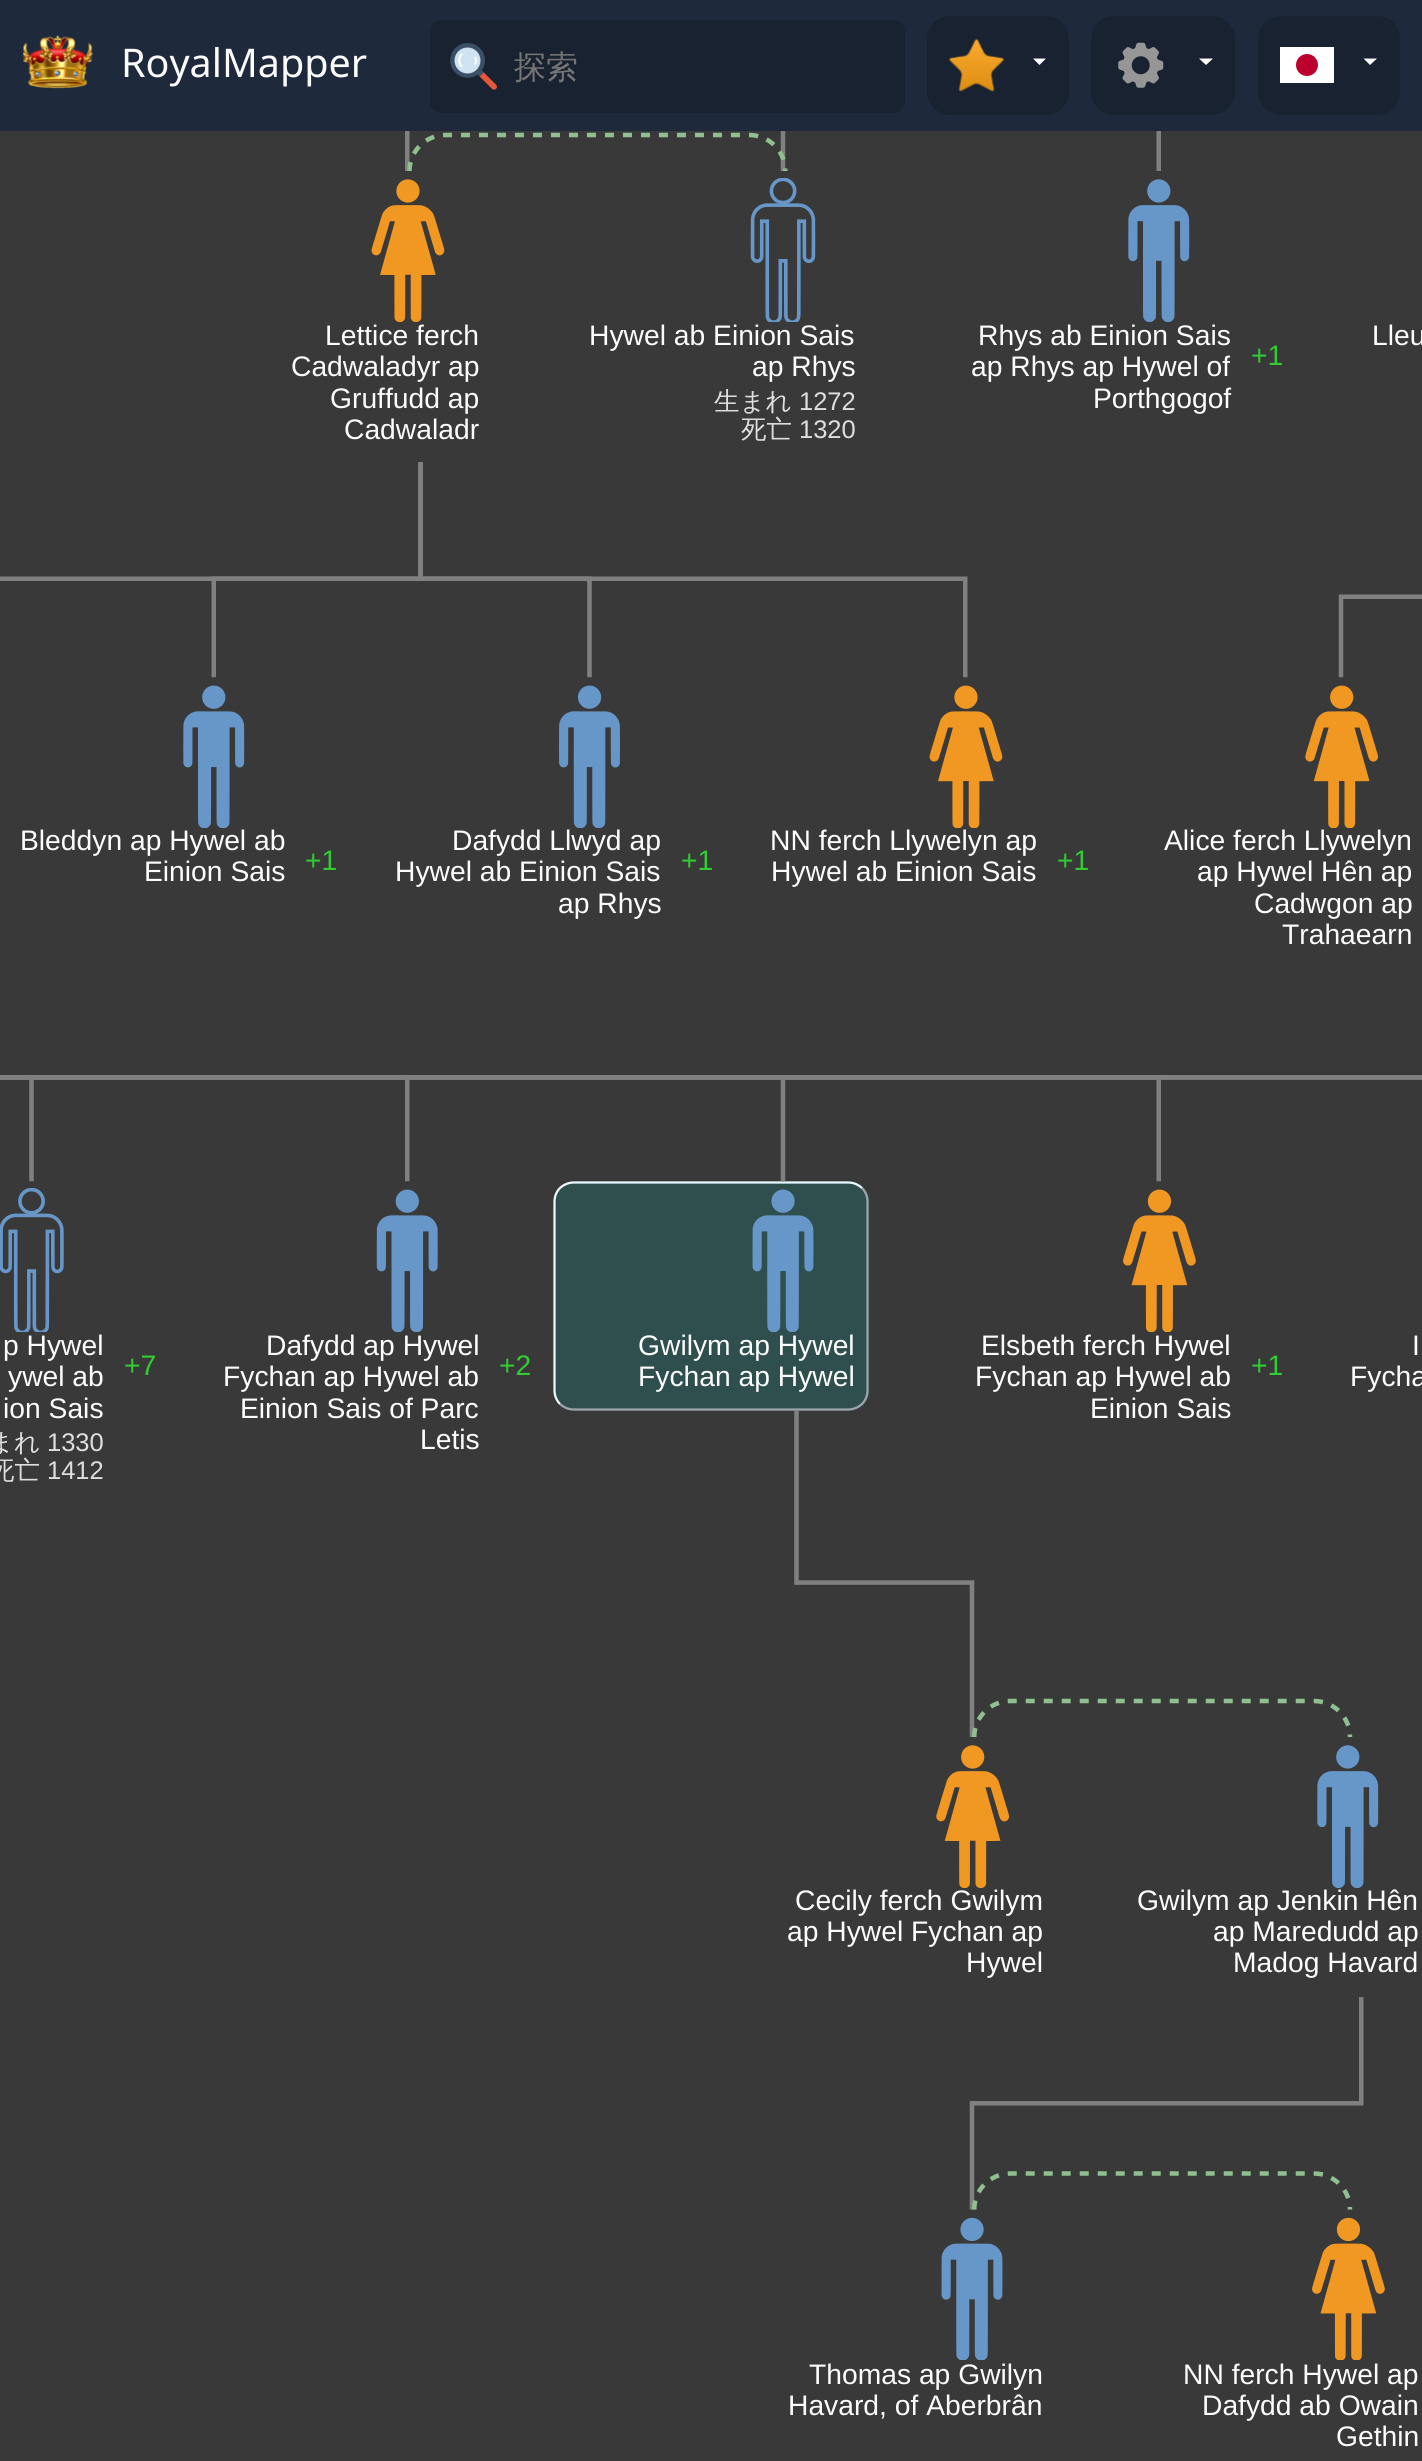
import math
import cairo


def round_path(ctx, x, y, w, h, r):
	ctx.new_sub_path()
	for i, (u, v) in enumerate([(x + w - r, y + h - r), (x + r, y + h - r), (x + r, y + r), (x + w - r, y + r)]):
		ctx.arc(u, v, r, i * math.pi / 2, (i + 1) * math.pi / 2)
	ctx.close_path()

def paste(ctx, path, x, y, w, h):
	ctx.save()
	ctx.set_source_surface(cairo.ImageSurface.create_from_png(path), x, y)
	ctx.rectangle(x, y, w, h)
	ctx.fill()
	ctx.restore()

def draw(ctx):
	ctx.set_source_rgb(0.224, 0.224, 0.224)
	ctx.paint()
	ctx.set_source_rgb(0.118, 0.161, 0.231)
	ctx.rectangle(0, 0, 1422, 131)
	ctx.fill()
	paste(ctx, 'media/1.png', 23, 35, 71, 54)
	ctx.select_font_face('Noto Sans')
	ctx.set_font_size(39.5)
	ctx.set_source_rgb(0.988, 0.988, 0.988)
	ctx.move_to(121, 77)
	ctx.show_text('RoyalMapper')
	ctx.set_source_rgb(0.098, 0.133, 0.188)
	round_path(ctx, 430, 20, 475, 93, 11)
	ctx.fill()
	paste(ctx, 'media/2.png', 450, 43, 47, 47)
	ctx.select_font_face('WenQuanYi Zen Hei Medium')
	ctx.set_font_size(32)
	ctx.set_source_rgb(0.459, 0.459, 0.459)
	ctx.move_to(514, 78)
	ctx.show_text('探索')
	ctx.set_source_rgb(0.098, 0.133, 0.188)
	round_path(ctx, 927, 16, 142, 99, 23)
	ctx.fill()
	paste(ctx, 'media/3.png', 949, 38, 55, 54)
	ctx.set_source_rgb(1, 1, 1)
	ctx.new_path()
	ctx.move_to(1033, 58.5)
	ctx.line_to(1046, 58.5)
	ctx.line_to(1039.5, 65)
	ctx.close_path()
	ctx.fill()
	ctx.set_source_rgb(0.098, 0.133, 0.188)
	round_path(ctx, 1091, 16, 144, 99, 23)
	ctx.fill()
	paste(ctx, 'media/4.png', 1118, 42, 46, 46)
	ctx.set_source_rgb(1, 1, 1)
	ctx.new_path()
	ctx.move_to(1199, 58.5)
	ctx.line_to(1213, 58.5)
	ctx.line_to(1206, 65)
	ctx.close_path()
	ctx.fill()
	ctx.set_source_rgb(0.098, 0.133, 0.188)
	round_path(ctx, 1258, 16, 142, 99, 23)
	ctx.fill()
	ctx.set_source_rgb(1, 1, 1)
	ctx.rectangle(1280, 47, 54, 36)
	ctx.fill()
	ctx.set_source_rgb(0.737, 0, 0.176)
	ctx.arc(1307, 65, 11, 0, 2 * math.pi)
	ctx.fill()
	ctx.set_source_rgb(1, 1, 1)
	ctx.new_path()
	ctx.move_to(1363.5, 58.5)
	ctx.line_to(1377, 58.5)
	ctx.line_to(1370, 65)
	ctx.close_path()
	ctx.fill()
	paste(ctx, 'media/6.png', 371, 179, 74, 143)
	ctx.select_font_face('Liberation Sans')
	ctx.set_font_size(28.25)
	ctx.set_source_rgb(0.988, 0.988, 0.988)
	for x, y, s in [
		(325, 345, 'Lettice ferch'),
		(291, 376, 'Cadwaladyr ap'),
		(330, 408, 'Gruffudd ap'),
		(344, 439, 'Cadwaladr'),
	]:
		ctx.move_to(x, y)
		ctx.show_text(s)
	paste(ctx, 'media/7.png', 750, 178, 66, 144)
	ctx.move_to(589, 345)
	ctx.show_text('Hywel ab Einion Sais')
	ctx.move_to(752, 376)
	ctx.show_text('ap Rhys')
	ctx.select_font_face('WenQuanYi Zen Hei Medium')
	ctx.set_font_size(25.5)
	ctx.set_source_rgb(0.871, 0.871, 0.871)
	ctx.move_to(714, 410)
	ctx.show_text('生まれ')
	ctx.select_font_face('Liberation Sans')
	ctx.move_to(799, 410)
	ctx.show_text('1272')
	ctx.select_font_face('WenQuanYi Zen Hei Medium')
	ctx.move_to(741, 438)
	ctx.show_text('死亡')
	ctx.select_font_face('Liberation Sans')
	ctx.move_to(799, 438)
	ctx.show_text('1320')
	paste(ctx, 'media/8.png', 1128, 179, 62, 143)
	ctx.set_font_size(28.25)
	ctx.set_source_rgb(0.988, 0.988, 0.988)
	for x, y, s in [
		(978, 345, 'Rhys ab Einion Sais'),
		(971, 376, 'ap Rhys ap Hywel of'),
		(1093, 408, 'Porthgogof'),
		(1372, 345, 'Lleu'),
	]:
		ctx.move_to(x, y)
		ctx.show_text(s)
	paste(ctx, 'media/9.png', 183, 685, 62, 143)
	ctx.move_to(20, 850)
	ctx.show_text('Bleddyn ap Hywel ab')
	ctx.move_to(144, 881)
	ctx.show_text('Einion Sais')
	paste(ctx, 'media/10.png', 559, 685, 61, 143)
	for x, y, s in [
		(452, 850, 'Dafydd Llwyd ap'),
		(395, 881, 'Hywel ab Einion Sais'),
		(558, 913, 'ap Rhys'),
	]:
		ctx.move_to(x, y)
		ctx.show_text(s)
	paste(ctx, 'media/11.png', 929, 685, 74, 143)
	ctx.move_to(770, 850)
	ctx.show_text('NN ferch Llywelyn ap')
	ctx.move_to(771, 881)
	ctx.show_text('Hywel ab Einion Sais')
	paste(ctx, 'media/12.png', 1305, 685, 73, 143)
	for x, y, s in [
		(1164, 850, 'Alice ferch Llywelyn'),
		(1197, 881, 'ap Hywel Hên ap'),
		(1254, 913, 'Cadwgon ap'),
		(1282, 944, 'Trahaearn'),
	]:
		ctx.move_to(x, y)
		ctx.show_text(s)
	paste(ctx, 'media/13.png', 0, 1188, 64, 144)
	for x, y, s in [
		(3, 1355, 'p Hywel'),
		(8, 1386, 'ywel ab'),
		(3, 1418, 'ion Sais'),
	]:
		ctx.move_to(x, y)
		ctx.show_text(s)
	ctx.select_font_face('WenQuanYi Zen Hei Medium')
	ctx.set_font_size(25.5)
	ctx.set_source_rgb(0.871, 0.871, 0.871)
	ctx.move_to(-12, 1451)
	ctx.show_text('まれ')
	ctx.select_font_face('Liberation Sans')
	ctx.move_to(47, 1451)
	ctx.show_text('1330')
	ctx.select_font_face('WenQuanYi Zen Hei Medium')
	ctx.move_to(-11, 1479)
	ctx.show_text('死亡')
	ctx.select_font_face('Liberation Sans')
	ctx.move_to(47, 1479)
	ctx.show_text('1412')
	paste(ctx, 'media/14.png', 376, 1189, 62, 143)
	ctx.set_font_size(28.25)
	ctx.set_source_rgb(0.988, 0.988, 0.988)
	for x, y, s in [
		(266, 1355, 'Dafydd ap Hywel'),
		(223, 1386, 'Fychan ap Hywel ab'),
		(240, 1418, 'Einion Sais of Parc'),
		(420, 1449, 'Letis'),
	]:
		ctx.move_to(x, y)
		ctx.show_text(s)
	ctx.set_source_rgb(0.184, 0.31, 0.31)
	round_path(ctx, 554, 1181, 315, 230, 20)
	ctx.fill()
	ctx.new_path()
	ctx.move_to(862, 1188)
	ctx.curve_to(865.5, 1191.5, 867.5, 1196.5, 867.5, 1201.5)
	ctx.line_to(867.5, 1390.5)
	ctx.curve_to(867.5, 1395.5, 865.5, 1400.5, 862, 1404)
	ctx.curve_to(858, 1407.5, 853.5, 1409.5, 848, 1409.5)
	ctx.line_to(574, 1409.5)
	ctx.curve_to(568.5, 1409.5, 564, 1407.5, 560, 1404)
	ctx.set_source_rgb(0.627, 0.647, 0.667)
	ctx.set_line_width(2.2)
	ctx.stroke()
	ctx.new_path()
	ctx.move_to(560, 1404)
	ctx.curve_to(556.5, 1400.5, 554.5, 1395.5, 554.5, 1390.5)
	ctx.line_to(554.5, 1201.5)
	ctx.curve_to(554.5, 1196.5, 556.5, 1191.5, 560, 1188)
	ctx.curve_to(564, 1184.5, 568.5, 1182.5, 574, 1182.5)
	ctx.line_to(848, 1182.5)
	ctx.curve_to(853.5, 1182.5, 858, 1184.5, 862, 1188)
	ctx.set_source_rgb(0.941, 0.973, 1)
	ctx.stroke()
	paste(ctx, 'media/15.png', 752, 1189, 62, 143)
	ctx.set_source_rgb(0.988, 0.988, 0.988)
	ctx.move_to(638, 1355)
	ctx.show_text('Gwilym ap Hywel')
	ctx.move_to(638, 1386)
	ctx.show_text('Fychan ap Hywel')
	paste(ctx, 'media/16.png', 1123, 1189, 73, 143)
	for x, y, s in [
		(981, 1355, 'Elsbeth ferch Hywel'),
		(975, 1386, 'Fychan ap Hywel ab'),
		(1090, 1418, 'Einion Sais'),
		(1412, 1355, 'I'),
		(1350, 1386, 'Fycha'),
	]:
		ctx.move_to(x, y)
		ctx.show_text(s)
	paste(ctx, 'media/17.png', 936, 1745, 73, 143)
	for x, y, s in [
		(795, 1910, 'Cecily ferch Gwilym'),
		(787, 1941, 'ap Hywel Fychan ap'),
		(966, 1972, 'Hywel'),
	]:
		ctx.move_to(x, y)
		ctx.show_text(s)
	paste(ctx, 'media/8.png', 1317, 1745, 62, 143)
	for x, y, s in [
		(1137, 1910, 'Gwilym ap Jenkin Hên'),
		(1213, 1941, 'ap Maredudd ap'),
		(1233, 1972, 'Madog Havard'),
	]:
		ctx.move_to(x, y)
		ctx.show_text(s)
	paste(ctx, 'media/5.png', 0, 131, 1422, 2079)
	ctx.set_source_rgb(0.196, 0.804, 0.196)
	for x, y, s in [
		(1251, 365, '+1'),
		(305, 870, '+1'),
		(681, 870, '+1'),
		(1057, 870, '+1'),
		(124, 1375, '+7'),
		(499, 1375, '+2'),
		(1251, 1375, '+1'),
	]:
		ctx.move_to(x, y)
		ctx.show_text(s)
	paste(ctx, 'media/18.png', 941, 2217, 62, 143)
	ctx.set_source_rgb(0.988, 0.988, 0.988)
	ctx.move_to(809, 2384)
	ctx.show_text('Thomas ap Gwilyn')
	ctx.move_to(788, 2415)
	ctx.show_text('Havard, of Aberbrân')
	paste(ctx, 'media/19.png', 1312, 2217, 73, 143)
	for x, y, s in [
		(1183, 2384, 'NN ferch Hywel ap'),
		(1202, 2415, 'Dafydd ab Owain'),
		(1336, 2446, 'Gethin'),
	]:
		ctx.move_to(x, y)
		ctx.show_text(s)


surface = cairo.ImageSurface(cairo.FORMAT_RGB24, 1422, 2461)
ctx = cairo.Context(surface)
options = cairo.FontOptions()
options.set_hint_metrics(cairo.HINT_METRICS_OFF)
options.set_hint_style(cairo.HINT_STYLE_NONE)
ctx.set_font_options(options)
ctx.set_miter_limit(4)
draw(ctx)
surface.write_to_png('image.png')
